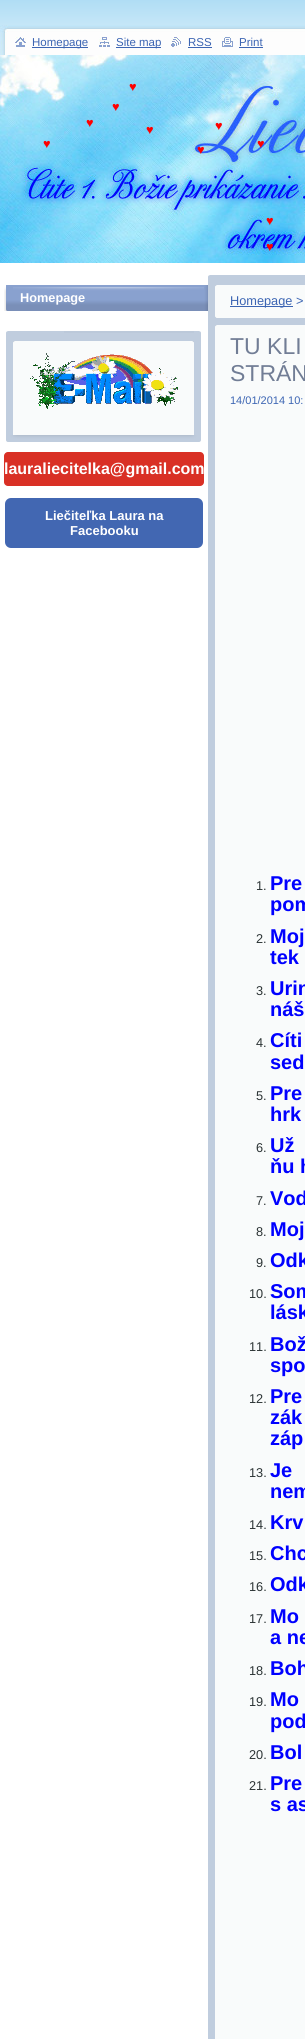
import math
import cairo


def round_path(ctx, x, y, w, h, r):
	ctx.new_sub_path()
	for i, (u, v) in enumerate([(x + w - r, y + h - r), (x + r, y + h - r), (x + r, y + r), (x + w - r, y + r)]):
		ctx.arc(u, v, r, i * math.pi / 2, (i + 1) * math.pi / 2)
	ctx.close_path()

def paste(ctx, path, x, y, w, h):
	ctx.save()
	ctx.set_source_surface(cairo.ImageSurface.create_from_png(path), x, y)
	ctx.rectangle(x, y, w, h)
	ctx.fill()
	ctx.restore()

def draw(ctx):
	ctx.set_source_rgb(1, 1, 1)
	ctx.paint()
	paste(ctx, 'media/1.png', 0, 0, 305, 25)
	paste(ctx, 'media/2.png', 0, 25, 305, 30)
	paste(ctx, 'media/3.png', 0, 55, 305, 208)
	paste(ctx, 'media/4.png', 15, 37, 11, 10)
	ctx.set_source_rgb(0.235, 0.396, 0.702)
	ctx.rectangle(32, 47, 56, 1)
	ctx.fill()
	ctx.select_font_face('Liberation Sans')
	ctx.set_font_size(11.5)
	ctx.move_to(32, 46)
	ctx.show_text('Homepage')
	paste(ctx, 'media/5.png', 99, 37, 11, 10)
	ctx.rectangle(116, 47, 45, 1)
	ctx.fill()
	ctx.move_to(116, 46)
	ctx.show_text('Site map')
	paste(ctx, 'media/6.png', 171, 37, 10, 10)
	ctx.move_to(188, 46)
	ctx.show_text('RSS')
	ctx.rectangle(188, 47, 24, 1)
	ctx.fill()
	paste(ctx, 'media/7.png', 222, 37, 11, 10)
	ctx.move_to(239, 46)
	ctx.show_text('Print')
	ctx.rectangle(239, 47, 24, 1)
	ctx.fill()
	ctx.set_source_rgb(0.753, 0.804, 0.871)
	ctx.rectangle(208, 275, 97, 1764)
	ctx.fill()
	ctx.set_font_size(12.75)
	ctx.set_source_rgb(1, 0, 0)
	for x, y, s in [
		(129, 91, '♥'),
		(112, 111, '♥'),
		(86, 127, '♥'),
		(146, 134, '♥'),
		(215, 130, '♥'),
		(43, 148, '♥'),
		(257, 148, '♥'),
		(197, 154, '♥'),
		(266, 225, '♥'),
		(266, 251, '♥'),
	]:
		ctx.move_to(x, y)
		ctx.show_text(s)
	paste(ctx, 'media/8.png', 208, 275, 2, 2)
	ctx.set_source_rgb(0.976, 0.984, 0.984)
	ctx.rectangle(215, 285, 90, 33)
	ctx.fill()
	paste(ctx, 'media/9.png', 215, 316, 2, 2)
	paste(ctx, 'media/10.png', 215, 285, 2, 2)
	ctx.set_source_rgb(0.235, 0.396, 0.702)
	ctx.rectangle(230, 306, 63, 1)
	ctx.fill()
	ctx.move_to(230, 305)
	ctx.show_text('Homepage >')
	ctx.set_source_rgb(0.976, 0.984, 0.984)
	ctx.rectangle(215, 325, 90, 1714)
	ctx.fill()
	paste(ctx, 'media/10.png', 215, 325, 2, 2)
	ctx.set_font_size(23)
	ctx.set_source_rgb(0.443, 0.49, 0.584)
	ctx.move_to(230, 354)
	ctx.show_text('TU KLI')
	ctx.move_to(230, 381)
	ctx.show_text('STRÁN')
	ctx.set_font_size(11)
	ctx.set_source_rgb(0.235, 0.396, 0.702)
	ctx.move_to(230, 404)
	ctx.show_text('14/01/2014 10:')
	ctx.set_font_size(12.75)
	ctx.set_source_rgb(0.169, 0.2, 0.204)
	ctx.move_to(256, 890)
	ctx.show_text('1.')
	ctx.select_font_face('Liberation Sans', cairo.FONT_SLANT_NORMAL, cairo.FONT_WEIGHT_BOLD)
	ctx.set_font_size(20)
	ctx.set_source_rgb(0, 0, 1)
	ctx.move_to(270, 890)
	ctx.show_text('Pre')
	ctx.move_to(270, 911)
	ctx.show_text('pom')
	ctx.select_font_face('Liberation Sans')
	ctx.set_font_size(12.75)
	ctx.set_source_rgb(0.169, 0.2, 0.204)
	ctx.move_to(256, 943)
	ctx.show_text('2.')
	ctx.select_font_face('Liberation Sans', cairo.FONT_SLANT_NORMAL, cairo.FONT_WEIGHT_BOLD)
	ctx.set_font_size(20)
	ctx.set_source_rgb(0, 0, 1)
	ctx.move_to(270, 943)
	ctx.show_text('Moj')
	ctx.move_to(270, 964)
	ctx.show_text('tek')
	ctx.select_font_face('Liberation Sans')
	ctx.set_font_size(12.75)
	ctx.set_source_rgb(0.169, 0.2, 0.204)
	ctx.move_to(256, 995)
	ctx.show_text('3.')
	ctx.select_font_face('Liberation Sans', cairo.FONT_SLANT_NORMAL, cairo.FONT_WEIGHT_BOLD)
	ctx.set_font_size(20)
	ctx.set_source_rgb(0, 0, 1)
	ctx.move_to(270, 995)
	ctx.show_text('Urin')
	ctx.move_to(270, 1016)
	ctx.show_text('náš')
	ctx.select_font_face('Liberation Sans')
	ctx.set_font_size(12.75)
	ctx.set_source_rgb(0.169, 0.2, 0.204)
	ctx.move_to(256, 1047)
	ctx.show_text('4.')
	ctx.select_font_face('Liberation Sans', cairo.FONT_SLANT_NORMAL, cairo.FONT_WEIGHT_BOLD)
	ctx.set_font_size(20)
	ctx.set_source_rgb(0, 0, 1)
	ctx.move_to(270, 1047)
	ctx.show_text('Cíti')
	ctx.move_to(270, 1069)
	ctx.show_text('sed')
	ctx.select_font_face('Liberation Sans')
	ctx.set_font_size(12.75)
	ctx.set_source_rgb(0.169, 0.2, 0.204)
	ctx.move_to(256, 1100)
	ctx.show_text('5.')
	ctx.select_font_face('Liberation Sans', cairo.FONT_SLANT_NORMAL, cairo.FONT_WEIGHT_BOLD)
	ctx.set_font_size(20)
	ctx.set_source_rgb(0, 0, 1)
	ctx.move_to(270, 1100)
	ctx.show_text('Pre')
	ctx.move_to(270, 1121)
	ctx.show_text('hrk')
	ctx.select_font_face('Liberation Sans')
	ctx.set_font_size(12.75)
	ctx.set_source_rgb(0.169, 0.2, 0.204)
	ctx.move_to(256, 1152)
	ctx.show_text('6.')
	ctx.select_font_face('Liberation Sans', cairo.FONT_SLANT_NORMAL, cairo.FONT_WEIGHT_BOLD)
	ctx.set_font_size(20)
	ctx.set_source_rgb(0, 0, 1)
	ctx.move_to(270, 1152)
	ctx.show_text('Už')
	ctx.move_to(270, 1173)
	ctx.show_text('ňu h')
	ctx.select_font_face('Liberation Sans')
	ctx.set_font_size(12.75)
	ctx.set_source_rgb(0.169, 0.2, 0.204)
	ctx.move_to(256, 1205)
	ctx.show_text('7.')
	ctx.select_font_face('Liberation Sans', cairo.FONT_SLANT_NORMAL, cairo.FONT_WEIGHT_BOLD)
	ctx.set_font_size(20)
	ctx.set_source_rgb(0, 0, 1)
	ctx.move_to(270, 1205)
	ctx.show_text('Vod')
	ctx.select_font_face('Liberation Sans')
	ctx.set_font_size(12.75)
	ctx.set_source_rgb(0.169, 0.2, 0.204)
	ctx.move_to(256, 1236)
	ctx.show_text('8.')
	ctx.select_font_face('Liberation Sans', cairo.FONT_SLANT_NORMAL, cairo.FONT_WEIGHT_BOLD)
	ctx.set_font_size(20)
	ctx.set_source_rgb(0, 0, 1)
	ctx.move_to(270, 1236)
	ctx.show_text('Moj')
	ctx.select_font_face('Liberation Sans')
	ctx.set_font_size(12.75)
	ctx.set_source_rgb(0.169, 0.2, 0.204)
	ctx.move_to(256, 1267)
	ctx.show_text('9.')
	ctx.select_font_face('Liberation Sans', cairo.FONT_SLANT_NORMAL, cairo.FONT_WEIGHT_BOLD)
	ctx.set_font_size(20)
	ctx.set_source_rgb(0, 0, 1)
	ctx.move_to(270, 1267)
	ctx.show_text('Odk')
	ctx.select_font_face('Liberation Sans')
	ctx.set_font_size(12.75)
	ctx.set_source_rgb(0.169, 0.2, 0.204)
	ctx.move_to(249, 1298)
	ctx.show_text('10.')
	ctx.select_font_face('Liberation Sans', cairo.FONT_SLANT_NORMAL, cairo.FONT_WEIGHT_BOLD)
	ctx.set_font_size(20)
	ctx.set_source_rgb(0, 0, 1)
	ctx.move_to(270, 1298)
	ctx.show_text('Som')
	ctx.move_to(270, 1319)
	ctx.show_text('lásk')
	ctx.select_font_face('Liberation Sans')
	ctx.set_font_size(12.75)
	ctx.set_source_rgb(0.169, 0.2, 0.204)
	ctx.move_to(249, 1351)
	ctx.show_text('11.')
	ctx.select_font_face('Liberation Sans', cairo.FONT_SLANT_NORMAL, cairo.FONT_WEIGHT_BOLD)
	ctx.set_font_size(20)
	ctx.set_source_rgb(0, 0, 1)
	ctx.move_to(270, 1351)
	ctx.show_text('Bož')
	ctx.move_to(270, 1372)
	ctx.show_text('spo')
	ctx.select_font_face('Liberation Sans')
	ctx.set_font_size(12.75)
	ctx.set_source_rgb(0.169, 0.2, 0.204)
	ctx.move_to(249, 1403)
	ctx.show_text('12.')
	ctx.select_font_face('Liberation Sans', cairo.FONT_SLANT_NORMAL, cairo.FONT_WEIGHT_BOLD)
	ctx.set_font_size(20)
	ctx.set_source_rgb(0, 0, 1)
	for x, y, s in [
		(270, 1403, 'Pre'),
		(270, 1424, 'zák'),
		(270, 1445, 'záp'),
	]:
		ctx.move_to(x, y)
		ctx.show_text(s)
	ctx.select_font_face('Liberation Sans')
	ctx.set_font_size(12.75)
	ctx.set_source_rgb(0.169, 0.2, 0.204)
	ctx.move_to(249, 1477)
	ctx.show_text('13.')
	ctx.select_font_face('Liberation Sans', cairo.FONT_SLANT_NORMAL, cairo.FONT_WEIGHT_BOLD)
	ctx.set_font_size(20)
	ctx.set_source_rgb(0, 0, 1)
	ctx.move_to(270, 1477)
	ctx.show_text('Je')
	ctx.move_to(270, 1498)
	ctx.show_text('nem')
	ctx.select_font_face('Liberation Sans')
	ctx.set_font_size(12.75)
	ctx.set_source_rgb(0.169, 0.2, 0.204)
	ctx.move_to(249, 1529)
	ctx.show_text('14.')
	ctx.select_font_face('Liberation Sans', cairo.FONT_SLANT_NORMAL, cairo.FONT_WEIGHT_BOLD)
	ctx.set_font_size(20)
	ctx.set_source_rgb(0, 0, 1)
	ctx.move_to(270, 1529)
	ctx.show_text('Krv')
	ctx.select_font_face('Liberation Sans')
	ctx.set_font_size(12.75)
	ctx.set_source_rgb(0.169, 0.2, 0.204)
	ctx.move_to(249, 1560)
	ctx.show_text('15.')
	ctx.select_font_face('Liberation Sans', cairo.FONT_SLANT_NORMAL, cairo.FONT_WEIGHT_BOLD)
	ctx.set_font_size(20)
	ctx.set_source_rgb(0, 0, 1)
	ctx.move_to(270, 1560)
	ctx.show_text('Chc')
	ctx.select_font_face('Liberation Sans')
	ctx.set_font_size(12.75)
	ctx.set_source_rgb(0.169, 0.2, 0.204)
	ctx.move_to(249, 1591)
	ctx.show_text('16.')
	ctx.select_font_face('Liberation Sans', cairo.FONT_SLANT_NORMAL, cairo.FONT_WEIGHT_BOLD)
	ctx.set_font_size(20)
	ctx.set_source_rgb(0, 0, 1)
	ctx.move_to(270, 1591)
	ctx.show_text('Odk')
	ctx.select_font_face('Liberation Sans')
	ctx.set_font_size(12.75)
	ctx.set_source_rgb(0.169, 0.2, 0.204)
	ctx.move_to(249, 1623)
	ctx.show_text('17.')
	ctx.select_font_face('Liberation Sans', cairo.FONT_SLANT_NORMAL, cairo.FONT_WEIGHT_BOLD)
	ctx.set_font_size(20)
	ctx.set_source_rgb(0, 0, 1)
	ctx.move_to(270, 1623)
	ctx.show_text('Mo')
	ctx.move_to(270, 1644)
	ctx.show_text('a ne')
	ctx.select_font_face('Liberation Sans')
	ctx.set_font_size(12.75)
	ctx.set_source_rgb(0.169, 0.2, 0.204)
	ctx.move_to(249, 1675)
	ctx.show_text('18.')
	ctx.select_font_face('Liberation Sans', cairo.FONT_SLANT_NORMAL, cairo.FONT_WEIGHT_BOLD)
	ctx.set_font_size(20)
	ctx.set_source_rgb(0, 0, 1)
	ctx.move_to(270, 1675)
	ctx.show_text('Boh')
	ctx.select_font_face('Liberation Sans')
	ctx.set_font_size(12.75)
	ctx.set_source_rgb(0.169, 0.2, 0.204)
	ctx.move_to(249, 1706)
	ctx.show_text('19.')
	ctx.select_font_face('Liberation Sans', cairo.FONT_SLANT_NORMAL, cairo.FONT_WEIGHT_BOLD)
	ctx.set_font_size(20)
	ctx.set_source_rgb(0, 0, 1)
	ctx.move_to(270, 1706)
	ctx.show_text('Mo')
	ctx.move_to(270, 1728)
	ctx.show_text('pod')
	ctx.select_font_face('Liberation Sans')
	ctx.set_font_size(12.75)
	ctx.set_source_rgb(0.169, 0.2, 0.204)
	ctx.move_to(249, 1759)
	ctx.show_text('20.')
	ctx.select_font_face('Liberation Sans', cairo.FONT_SLANT_NORMAL, cairo.FONT_WEIGHT_BOLD)
	ctx.set_font_size(20)
	ctx.set_source_rgb(0, 0, 1)
	ctx.move_to(270, 1759)
	ctx.show_text('Bol')
	ctx.select_font_face('Liberation Sans')
	ctx.set_font_size(12.75)
	ctx.set_source_rgb(0.169, 0.2, 0.204)
	ctx.move_to(249, 1790)
	ctx.show_text('21.')
	ctx.select_font_face('Liberation Sans', cairo.FONT_SLANT_NORMAL, cairo.FONT_WEIGHT_BOLD)
	ctx.set_font_size(20)
	ctx.set_source_rgb(0, 0, 1)
	ctx.move_to(270, 1790)
	ctx.show_text('Pre')
	ctx.move_to(270, 1811)
	ctx.show_text('s as')
	paste(ctx, 'media/11.png', 4, 285, 204, 26)
	ctx.set_font_size(12.75)
	ctx.set_source_rgb(1, 1, 1)
	ctx.move_to(20, 302)
	ctx.show_text('Homepage')
	ctx.set_source_rgb(0.753, 0.804, 0.871)
	ctx.rectangle(6, 333, 195, 102)
	ctx.fill()
	paste(ctx, 'media/12.png', 6, 435, 195, 7)
	paste(ctx, 'media/13.png', 6, 331, 195, 2)
	ctx.set_source_rgb(0.976, 0.984, 0.984)
	ctx.rectangle(13, 343, 181, 92)
	ctx.fill()
	paste(ctx, 'media/14.png', 13, 341, 181, 2)
	paste(ctx, 'media/15.png', 30, 353, 148, 56)
	ctx.set_source_rgb(0.851, 0.188, 0.145)
	round_path(ctx, 4, 452, 200, 34, 4)
	ctx.fill()
	ctx.set_font_size(16)
	ctx.set_source_rgb(1, 1, 1)
	ctx.move_to(4, 474)
	ctx.show_text('lauraliecitelka@gmail.com')
	ctx.set_source_rgb(0.259, 0.404, 0.698)
	round_path(ctx, 5, 498, 198, 50, 6)
	ctx.fill()
	ctx.set_font_size(13)
	ctx.set_source_rgb(1, 1, 1)
	ctx.move_to(45, 520)
	ctx.show_text('Liečiteľka Laura na')
	ctx.move_to(70, 535)
	ctx.show_text('Facebooku')


surface = cairo.ImageSurface(cairo.FORMAT_RGB24, 305, 2039)
ctx = cairo.Context(surface)
options = cairo.FontOptions()
options.set_hint_metrics(cairo.HINT_METRICS_OFF)
options.set_hint_style(cairo.HINT_STYLE_NONE)
ctx.set_font_options(options)
ctx.set_miter_limit(4)
draw(ctx)
surface.write_to_png('image.png')
